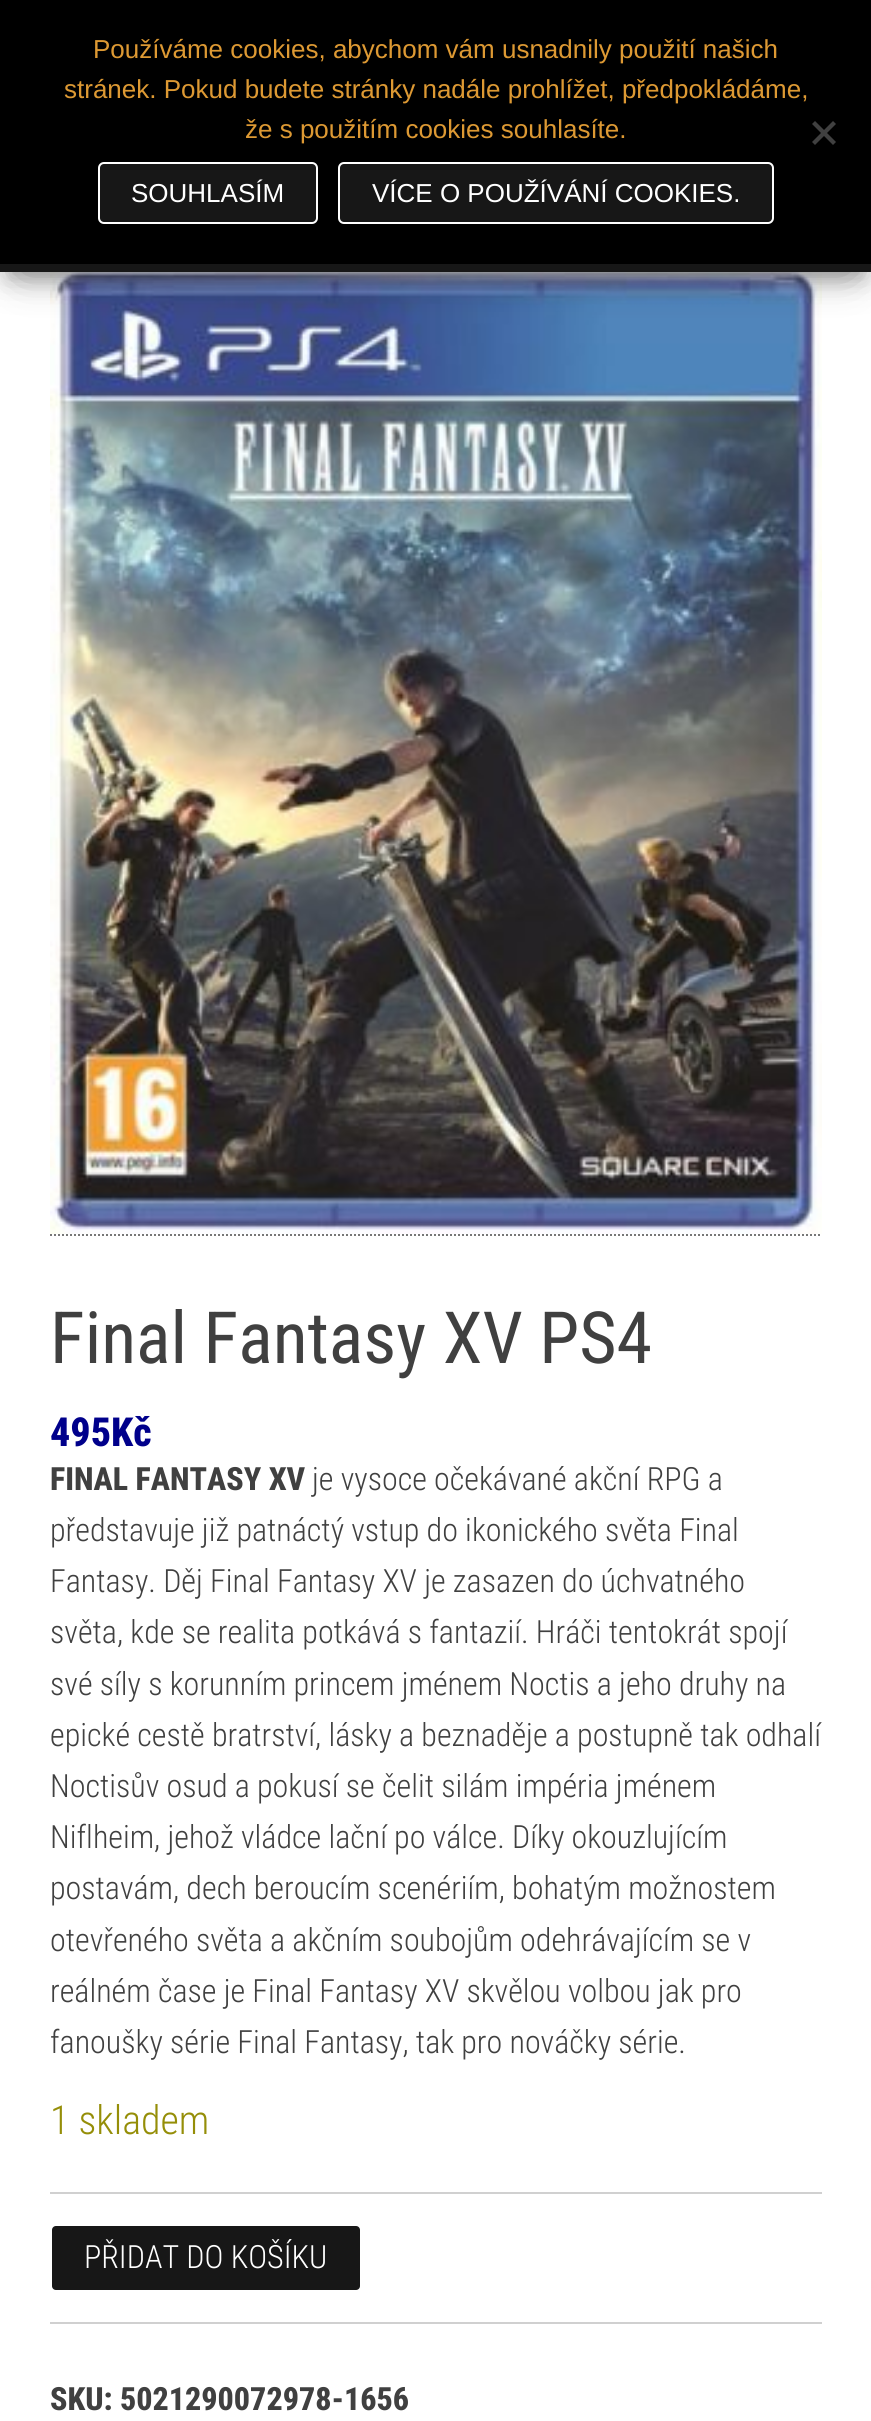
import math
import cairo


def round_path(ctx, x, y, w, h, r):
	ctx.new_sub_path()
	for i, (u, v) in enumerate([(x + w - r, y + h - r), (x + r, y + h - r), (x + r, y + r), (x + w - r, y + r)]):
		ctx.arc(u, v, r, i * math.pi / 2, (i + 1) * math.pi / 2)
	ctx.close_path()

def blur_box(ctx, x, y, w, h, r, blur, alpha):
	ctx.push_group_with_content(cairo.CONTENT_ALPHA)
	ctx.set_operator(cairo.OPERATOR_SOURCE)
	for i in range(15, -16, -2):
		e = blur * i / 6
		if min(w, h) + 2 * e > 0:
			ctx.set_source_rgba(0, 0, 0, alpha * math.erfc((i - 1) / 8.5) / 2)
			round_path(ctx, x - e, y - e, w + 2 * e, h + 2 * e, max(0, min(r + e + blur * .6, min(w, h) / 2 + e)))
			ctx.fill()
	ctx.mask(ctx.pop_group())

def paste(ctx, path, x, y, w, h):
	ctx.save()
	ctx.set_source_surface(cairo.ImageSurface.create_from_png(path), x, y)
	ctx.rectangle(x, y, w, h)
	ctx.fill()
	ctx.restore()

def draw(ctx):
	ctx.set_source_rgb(1, 1, 1)
	ctx.paint()
	paste(ctx, 'media/1.png', 50, 272, 772, 962)
	ctx.set_source_rgb(0, 0, 0)
	blur_box(ctx, 10, 26, 852, 252, 0, 10, 0.2)
	blur_box(ctx, 0, 6, 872, 272, 0, 20, 0.12)
	blur_box(ctx, 24, 44, 824, 224, 0, 20, 0.42)
	ctx.set_source_rgb(0.09, 0.09, 0.09)
	ctx.rectangle(0, 264, 871, 8)
	ctx.fill()
	ctx.set_source_rgb(0, 0, 0)
	ctx.rectangle(0, 0, 871, 264)
	ctx.fill()
	ctx.select_font_face('Liberation Sans')
	ctx.set_font_size(26)
	ctx.set_source_rgb(0.867, 0.6, 0.2)
	for x, y, s in [
		(93, 58, 'Používáme cookies, abychom vám usnadnily použití našich'),
		(64, 98, 'stránek. Pokud budete stránky nadále prohlížet, předpokládáme,'),
		(245, 138, 'že s použitím cookies souhlasíte.'),
	]:
		ctx.move_to(x, y)
		ctx.show_text(s)
	ctx.set_source_rgb(0.251, 0.251, 0.251)
	ctx.new_path()
	ctx.move_to(833, 121)
	ctx.line_to(836, 124)
	ctx.line_to(815, 145)
	ctx.line_to(812, 142)
	ctx.close_path()
	ctx.fill()
	ctx.new_path()
	ctx.move_to(812, 124)
	ctx.line_to(815, 121)
	ctx.line_to(836, 142)
	ctx.line_to(833, 145)
	ctx.close_path()
	ctx.fill()
	ctx.set_source_rgb(0.09, 0.09, 0.09)
	round_path(ctx, 99, 163, 218, 60, 5)
	ctx.fill_preserve()
	ctx.set_source_rgb(1, 1, 1)
	ctx.stroke()
	ctx.move_to(131, 202)
	ctx.show_text('SOUHLASÍM')
	ctx.set_source_rgb(0.09, 0.09, 0.09)
	round_path(ctx, 339, 163, 434, 60, 5)
	ctx.fill_preserve()
	ctx.set_source_rgb(1, 1, 1)
	ctx.stroke()
	ctx.move_to(372, 202)
	ctx.show_text('VÍCE O POUŽÍVÁNÍ COOKIES.')
	ctx.new_path()
	ctx.move_to(50, 1235)
	ctx.line_to(822, 1235)
	ctx.set_source_rgb(0.467, 0.467, 0.467)
	ctx.set_dash([2, 2])
	ctx.stroke()
	ctx.select_font_face('Roboto Condensed')
	ctx.set_font_size(72)
	ctx.set_source_rgb(0.251, 0.251, 0.251)
	ctx.move_to(50, 1363)
	ctx.show_text('Final Fantasy XV PS4')
	ctx.select_font_face('Roboto Condensed ExtraBold')
	ctx.set_font_size(40)
	ctx.set_source_rgb(0, 0, 0.545)
	ctx.move_to(50, 1446)
	ctx.show_text('495Kč')
	ctx.set_font_size(32)
	ctx.set_source_rgb(0.251, 0.251, 0.251)
	ctx.move_to(50, 1490)
	ctx.show_text('FINAL FANTASY XV')
	ctx.select_font_face('Roboto Condensed Light')
	for x, y, s in [
		(312, 1490, 'je vysoce očekávané akční RPG a'),
		(50, 1541, 'představuje již patnáctý vstup do ikonického světa Final'),
		(50, 1592, 'Fantasy. Děj Final Fantasy XV je zasazen do úchvatného'),
		(50, 1643, 'světa, kde se realita potkává s fantazií. Hráči tentokrát spojí'),
		(50, 1695, 'své síly s korunním princem jménem Noctis a jeho druhy na'),
		(50, 1746, 'epické cestě bratrství, lásky a beznaděje a postupně tak odhalí'),
		(50, 1797, 'Noctisův osud a pokusí se čelit silám impéria jménem'),
		(50, 1848, 'Niflheim, jehož vládce lační po válce. Díky okouzlujícím'),
		(50, 1899, 'postavám, dech beroucím scenériím, bohatým možnostem'),
		(50, 1951, 'otevřeného světa a akčním soubojům odehrávajícím se v'),
		(50, 2002, 'reálném čase je Final Fantasy XV skvělou volbou jak pro'),
		(50, 2053, 'fanoušky série Final Fantasy, tak pro nováčky série.'),
	]:
		ctx.move_to(x, y)
		ctx.show_text(s)
	ctx.set_font_size(40)
	ctx.set_source_rgb(0.584, 0.557, 0.035)
	ctx.move_to(50, 2134)
	ctx.show_text('1 skladem')
	ctx.set_source_rgb(0.816, 0.816, 0.816)
	ctx.rectangle(50, 2192, 772, 2)
	ctx.fill()
	ctx.rectangle(50, 2322, 772, 2)
	ctx.fill()
	ctx.set_source_rgb(0.09, 0.09, 0.09)
	round_path(ctx, 51, 2225, 310, 66, 5)
	ctx.fill_preserve()
	ctx.set_source_rgb(1, 1, 1)
	ctx.set_dash([])
	ctx.stroke()
	ctx.set_font_size(32)
	ctx.move_to(84, 2268)
	ctx.show_text('PŘIDAT DO KOŠÍKU')
	ctx.select_font_face('Roboto Condensed ExtraBold')
	ctx.set_source_rgb(0.251, 0.251, 0.251)
	ctx.move_to(50, 2410)
	ctx.show_text('SKU: 5021290072978-1656')


surface = cairo.ImageSurface(cairo.FORMAT_RGB24, 871, 2421)
ctx = cairo.Context(surface)
options = cairo.FontOptions()
options.set_hint_metrics(cairo.HINT_METRICS_OFF)
options.set_hint_style(cairo.HINT_STYLE_NONE)
ctx.set_font_options(options)
ctx.set_miter_limit(4)
draw(ctx)
surface.write_to_png('image.png')
